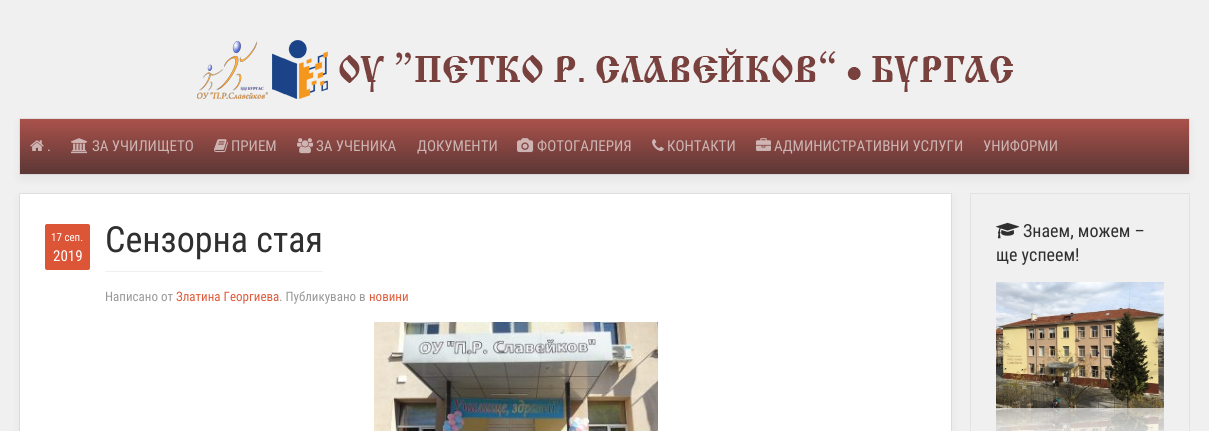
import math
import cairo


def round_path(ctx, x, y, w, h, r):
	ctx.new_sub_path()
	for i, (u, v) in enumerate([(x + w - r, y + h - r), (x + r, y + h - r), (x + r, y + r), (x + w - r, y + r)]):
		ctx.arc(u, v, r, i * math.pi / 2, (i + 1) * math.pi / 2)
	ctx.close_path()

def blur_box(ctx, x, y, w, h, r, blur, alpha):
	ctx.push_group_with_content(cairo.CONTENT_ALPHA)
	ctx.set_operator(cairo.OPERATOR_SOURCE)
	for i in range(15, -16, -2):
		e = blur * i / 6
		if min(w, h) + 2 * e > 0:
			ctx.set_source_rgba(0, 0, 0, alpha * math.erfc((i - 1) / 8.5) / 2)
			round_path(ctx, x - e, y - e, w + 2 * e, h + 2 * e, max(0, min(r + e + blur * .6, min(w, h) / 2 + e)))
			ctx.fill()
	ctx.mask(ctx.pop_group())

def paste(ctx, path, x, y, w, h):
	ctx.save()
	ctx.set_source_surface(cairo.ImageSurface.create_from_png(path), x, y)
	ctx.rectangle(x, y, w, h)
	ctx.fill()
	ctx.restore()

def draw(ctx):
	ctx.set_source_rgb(0.941, 0.941, 0.941)
	ctx.paint()
	paste(ctx, 'media/1.png', 197, 40, 816, 59)
	ctx.set_source_rgb(0, 0, 0)
	blur_box(ctx, 20, 123, 1169, 55, 0, 5, 0.06)
	ctx.rectangle(19.5, 118.5, 1170, 56)
	ctx.set_source_rgba(0, 0, 0, 0.06)
	ctx.set_line_width(1)
	ctx.stroke()
	gradient = cairo.LinearGradient(605, 119, 605, 174)
	gradient.add_color_stop_rgba(0, 0.667, 0.318, 0.294, 1)
	gradient.add_color_stop_rgba(1, 0.357, 0.216, 0.208, 1)
	ctx.set_source(gradient)
	ctx.rectangle(20, 119, 1169, 55)
	ctx.fill()
	paste(ctx, 'media/2.png', 30, 140, 14, 11)
	ctx.select_font_face('Roboto Condensed')
	ctx.set_font_size(15)
	ctx.set_source_rgb(0.796, 0.706, 0.698)
	ctx.move_to(47, 151)
	ctx.show_text('.')
	paste(ctx, 'media/3.png', 71, 138, 17, 16)
	ctx.move_to(92, 151)
	ctx.show_text('ЗА УЧИЛИЩЕТО')
	paste(ctx, 'media/4.png', 214, 139, 14, 14)
	ctx.move_to(231, 151)
	ctx.show_text('ПРИЕМ')
	paste(ctx, 'media/5.png', 297, 138, 16, 16)
	ctx.move_to(316, 151)
	ctx.show_text('ЗА УЧЕНИКА')
	ctx.move_to(417, 151)
	ctx.show_text('ДОКУМЕНТИ')
	paste(ctx, 'media/6.png', 517, 138, 17, 15)
	ctx.move_to(537, 151)
	ctx.show_text('ФОТОГАЛЕРИЯ')
	paste(ctx, 'media/7.png', 652, 139, 12, 12)
	ctx.move_to(667, 151)
	ctx.show_text('КОНТАКТИ')
	paste(ctx, 'media/8.png', 756, 138, 15, 13)
	ctx.move_to(774, 151)
	ctx.show_text('АДМИНИСТРАТИВНИ УСЛУГИ')
	ctx.move_to(983, 151)
	ctx.show_text('УНИФОРМИ')
	ctx.set_source_rgb(0, 0, 0)
	blur_box(ctx, 20, 198, 931, 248, 0, 5, 0.06)
	ctx.rectangle(19.5, 193.5, 932, 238)
	ctx.set_source_rgba(0, 0, 0, 0.06)
	ctx.stroke()
	ctx.set_source_rgb(1, 1, 1)
	ctx.rectangle(20, 194, 931, 237)
	ctx.fill()
	ctx.set_source_rgb(0.863, 0.333, 0.216)
	round_path(ctx, 45, 224, 45, 46, 2)
	ctx.fill()
	ctx.set_font_size(11)
	ctx.set_source_rgb(1, 1, 1)
	ctx.move_to(51, 241)
	ctx.show_text('17 сеп.')
	ctx.set_font_size(15)
	ctx.move_to(53, 261)
	ctx.show_text('2019')
	ctx.set_source_rgb(0.941, 0.941, 0.941)
	ctx.rectangle(105, 271, 218, 1)
	ctx.fill()
	ctx.set_font_size(36)
	ctx.set_source_rgb(0.184, 0.184, 0.184)
	ctx.move_to(105, 252)
	ctx.show_text('Сензорна стая')
	ctx.set_font_size(13)
	ctx.set_source_rgb(0.6, 0.6, 0.6)
	ctx.move_to(105, 301)
	ctx.show_text('Написано от')
	ctx.set_source_rgb(0.878, 0.357, 0.227)
	ctx.move_to(176, 301)
	ctx.show_text('Златина Георгиева')
	ctx.set_source_rgb(0.6, 0.6, 0.6)
	ctx.move_to(279, 301)
	ctx.show_text('. Публикувано в')
	ctx.set_source_rgb(0.878, 0.357, 0.227)
	ctx.move_to(369, 301)
	ctx.show_text('новини')
	paste(ctx, 'media/9.png', 374, 322, 284, 109)
	ctx.rectangle(970.5, 193.5, 219, 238)
	ctx.set_source_rgba(0, 0, 0, 0.06)
	ctx.stroke()
	paste(ctx, 'media/10.png', 996, 222, 24, 17)
	ctx.set_font_size(18)
	ctx.set_source_rgb(0.184, 0.184, 0.184)
	ctx.move_to(1023, 237)
	ctx.show_text('Знаем, можем –')
	ctx.move_to(996, 261)
	ctx.show_text('ще успеем!')
	paste(ctx, 'media/11.png', 996, 282, 168, 149)


surface = cairo.ImageSurface(cairo.FORMAT_RGB24, 1209, 431)
ctx = cairo.Context(surface)
options = cairo.FontOptions()
options.set_hint_metrics(cairo.HINT_METRICS_OFF)
options.set_hint_style(cairo.HINT_STYLE_NONE)
ctx.set_font_options(options)
ctx.set_miter_limit(4)
draw(ctx)
surface.write_to_png('image.png')
